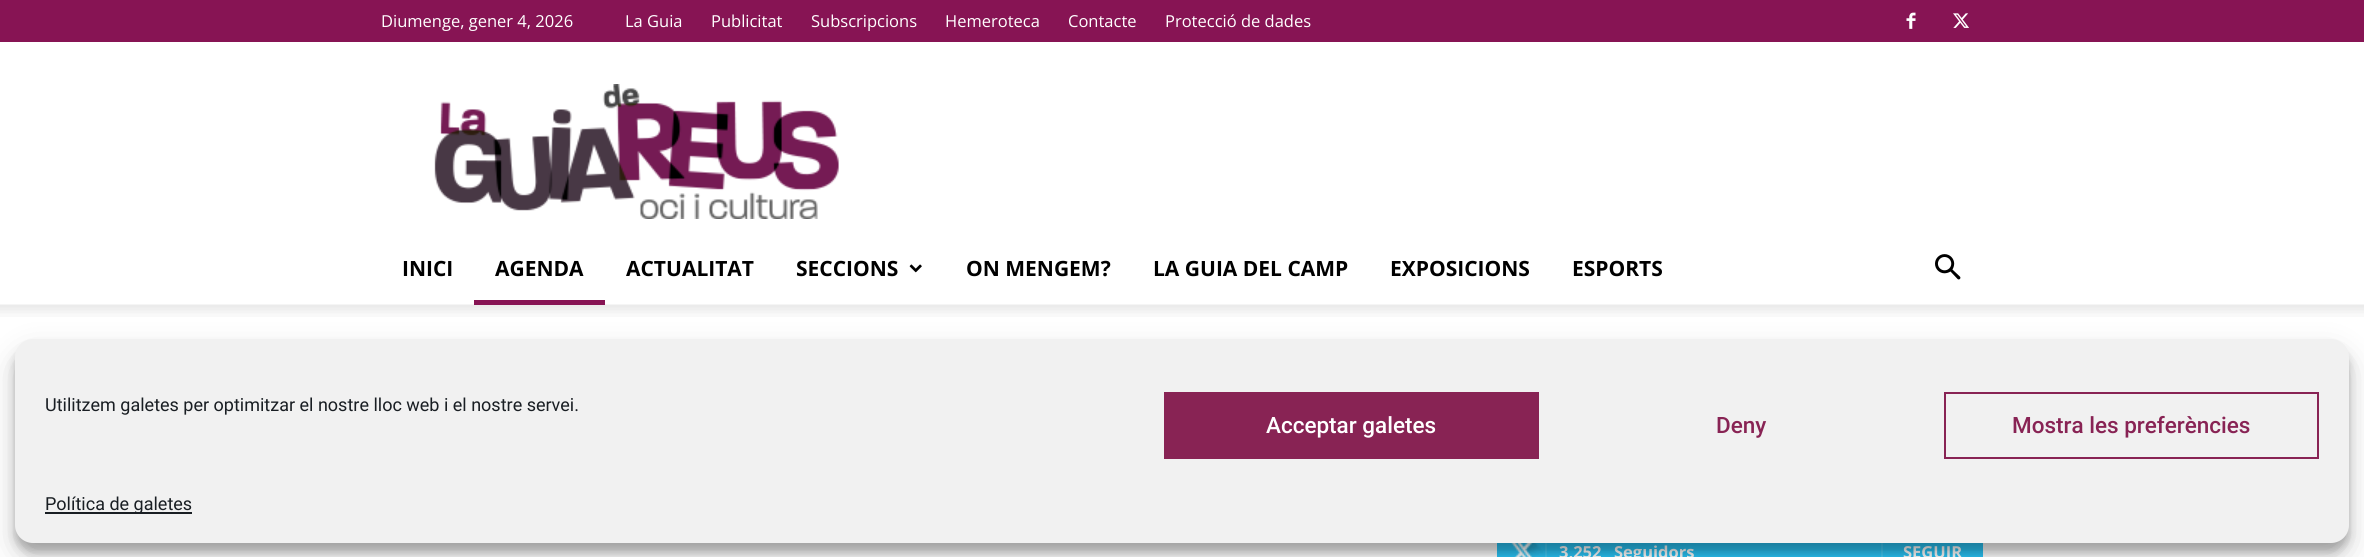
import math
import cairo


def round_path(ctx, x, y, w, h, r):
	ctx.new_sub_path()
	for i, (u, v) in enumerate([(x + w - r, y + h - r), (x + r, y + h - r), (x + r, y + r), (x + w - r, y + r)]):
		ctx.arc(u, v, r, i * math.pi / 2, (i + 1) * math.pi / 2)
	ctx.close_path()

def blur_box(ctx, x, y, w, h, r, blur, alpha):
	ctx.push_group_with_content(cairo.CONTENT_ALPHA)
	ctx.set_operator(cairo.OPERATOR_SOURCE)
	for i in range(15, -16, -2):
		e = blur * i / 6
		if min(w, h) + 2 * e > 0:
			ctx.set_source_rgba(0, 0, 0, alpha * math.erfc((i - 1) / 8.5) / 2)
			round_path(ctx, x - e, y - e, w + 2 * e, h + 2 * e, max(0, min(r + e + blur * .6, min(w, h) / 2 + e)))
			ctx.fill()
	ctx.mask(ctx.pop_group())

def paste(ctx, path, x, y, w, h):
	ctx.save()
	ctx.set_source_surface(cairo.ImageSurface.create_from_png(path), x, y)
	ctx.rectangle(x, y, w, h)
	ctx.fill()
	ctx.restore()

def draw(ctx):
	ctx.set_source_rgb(1, 1, 1)
	ctx.paint()
	ctx.set_source_rgb(0.529, 0.082, 0.329)
	ctx.rectangle(0, 0, 2364, 42)
	ctx.fill()
	ctx.select_font_face('Open Sans')
	ctx.set_font_size(16.5)
	ctx.set_source_rgb(1, 1, 1)
	for x, y, s in [
		(381, 27, 'Diumenge, gener 4, 2026'),
		(625, 27, 'La Guia'),
		(711, 27, 'Publicitat'),
		(811, 27, 'Subscripcions'),
		(945, 27, 'Hemeroteca'),
		(1068, 27, 'Contacte'),
		(1165, 27, 'Protecció de dades'),
	]:
		ctx.move_to(x, y)
		ctx.show_text(s)
	paste(ctx, 'media/1.png', 1906, 12, 10, 17)
	paste(ctx, 'media/2.png', 1953, 13, 16, 15)
	paste(ctx, 'media/3.png', 434, 84, 405, 135)
	ctx.select_font_face('Open Sans', cairo.FONT_SLANT_NORMAL, cairo.FONT_WEIGHT_BOLD)
	ctx.set_font_size(21)
	ctx.set_source_rgb(0, 0, 0)
	ctx.move_to(402, 276)
	ctx.show_text('INICI')
	ctx.move_to(495, 276)
	ctx.show_text('AGENDA')
	paste(ctx, 'media/6.png', 0, 304, 2364, 13)
	ctx.set_source_rgb(0.529, 0.082, 0.329)
	ctx.rectangle(474, 300, 131, 5)
	ctx.fill()
	ctx.set_source_rgb(0, 0, 0)
	ctx.move_to(626, 276)
	ctx.show_text('ACTUALITAT')
	ctx.move_to(796, 276)
	ctx.show_text('SECCIONS')
	paste(ctx, 'media/4.png', 909, 264, 13, 9)
	for x, y, s in [
		(966, 276, 'ON MENGEM?'),
		(1153, 276, 'LA GUIA DEL CAMP'),
		(1390, 276, 'EXPOSICIONS'),
		(1572, 276, 'ESPORTS'),
	]:
		ctx.move_to(x, y)
		ctx.show_text(s)
	paste(ctx, 'media/5.png', 1935, 254, 26, 26)
	ctx.set_source_rgb(0.161, 0.773, 0.965)
	ctx.rectangle(1497, 543, 486, 14)
	ctx.fill()
	paste(ctx, 'media/7.png', 1511, 543, 32, 14)
	ctx.set_source_rgb(0.243, 0.796, 0.969)
	ctx.rectangle(1545, 540, 2, 17)
	ctx.fill()
	ctx.set_font_size(16.5)
	ctx.set_source_rgb(1, 1, 1)
	ctx.move_to(1559, 558)
	ctx.show_text('3,252')
	ctx.move_to(1614, 558)
	ctx.show_text('Seguidors')
	ctx.set_source_rgb(0.243, 0.796, 0.969)
	ctx.rectangle(1881, 540, 2, 17)
	ctx.fill()
	ctx.set_source_rgb(1, 1, 1)
	ctx.move_to(1903, 558)
	ctx.show_text('SEGUIR')
	ctx.set_source_rgb(0, 0, 0)
	blur_box(ctx, 15, 348, 2334, 204, 18, 4.5, 0.23)
	blur_box(ctx, 15, 354, 2334, 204, 18, 15, 0.19)
	ctx.set_source_rgb(0.945, 0.945, 0.945)
	round_path(ctx, 15, 339, 2334, 204, 18)
	ctx.fill()
	ctx.select_font_face('Roboto')
	ctx.set_font_size(18)
	ctx.set_source_rgb(0.098, 0.118, 0.137)
	ctx.move_to(45, 411)
	ctx.show_text('Utilitzem galetes per optimitzar el nostre lloc web i el nostre servei.')
	ctx.set_source_rgb(0.533, 0.137, 0.329)
	ctx.rectangle(1164, 392, 375, 67)
	ctx.fill()
	ctx.select_font_face('Roboto Medium')
	ctx.set_font_size(22.5)
	ctx.set_source_rgb(1, 1, 1)
	ctx.move_to(1266, 433)
	ctx.show_text('Acceptar galetes')
	ctx.set_source_rgb(0.533, 0.137, 0.329)
	ctx.move_to(1716, 433)
	ctx.show_text('Deny')
	ctx.rectangle(1945, 393, 373, 65)
	ctx.stroke()
	ctx.move_to(2012, 433)
	ctx.show_text('Mostra les preferències')
	ctx.set_source_rgb(0.098, 0.118, 0.137)
	ctx.rectangle(45, 512, 147, 2)
	ctx.fill()
	ctx.select_font_face('Roboto')
	ctx.set_font_size(18)
	ctx.move_to(45, 510)
	ctx.show_text('Política de galetes')


surface = cairo.ImageSurface(cairo.FORMAT_RGB24, 2364, 557)
ctx = cairo.Context(surface)
options = cairo.FontOptions()
options.set_hint_metrics(cairo.HINT_METRICS_OFF)
options.set_hint_style(cairo.HINT_STYLE_NONE)
ctx.set_font_options(options)
ctx.set_miter_limit(4)
draw(ctx)
surface.write_to_png('image.png')
